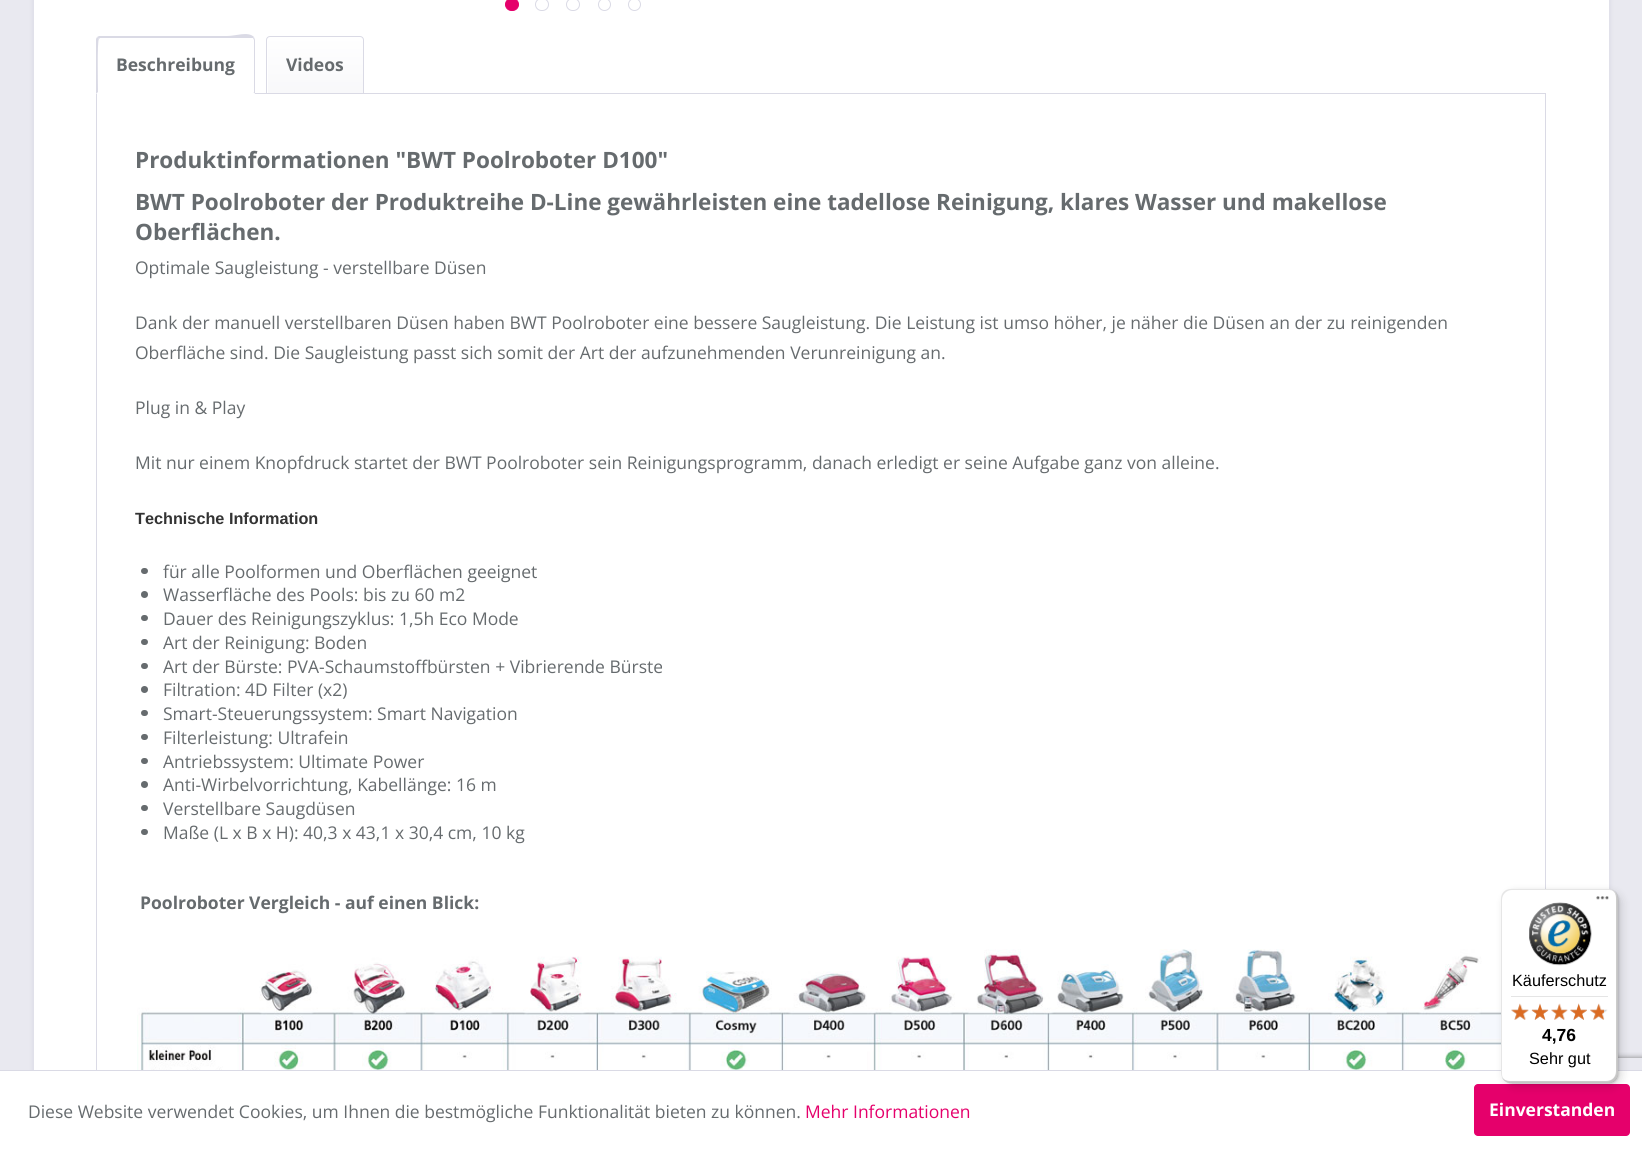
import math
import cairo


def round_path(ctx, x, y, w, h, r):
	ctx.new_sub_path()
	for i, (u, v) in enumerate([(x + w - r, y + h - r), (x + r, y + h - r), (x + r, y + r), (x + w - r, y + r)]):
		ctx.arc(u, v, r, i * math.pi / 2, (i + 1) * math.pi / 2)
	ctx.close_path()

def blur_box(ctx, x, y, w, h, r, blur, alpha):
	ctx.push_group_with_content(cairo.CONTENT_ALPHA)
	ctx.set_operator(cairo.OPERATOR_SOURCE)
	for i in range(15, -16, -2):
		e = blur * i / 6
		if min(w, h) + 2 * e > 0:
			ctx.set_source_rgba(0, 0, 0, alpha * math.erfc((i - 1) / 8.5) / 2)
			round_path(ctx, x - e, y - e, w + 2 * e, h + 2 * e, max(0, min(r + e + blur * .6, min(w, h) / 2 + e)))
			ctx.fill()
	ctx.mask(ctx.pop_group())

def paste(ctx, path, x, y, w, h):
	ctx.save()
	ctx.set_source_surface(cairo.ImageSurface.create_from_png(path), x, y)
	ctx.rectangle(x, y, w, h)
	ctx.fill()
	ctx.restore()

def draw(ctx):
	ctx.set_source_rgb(0.914, 0.914, 0.941)
	ctx.paint()
	ctx.set_source_rgb(0.855, 0.855, 0.898)
	blur_box(ctx, 33, -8, 1577, 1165, 0, 2.5, 1)
	ctx.set_source_rgb(1, 1, 1)
	ctx.rectangle(34, 0, 1575, 1070)
	ctx.fill()
	ctx.set_source_rgb(0.898, 0, 0.42)
	round_path(ctx, 505.5, -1.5, 13, 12, 6)
	ctx.fill_preserve()
	ctx.set_line_width(1)
	ctx.stroke()
	round_path(ctx, 535.5, -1.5, 13, 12, 6)
	ctx.set_source_rgb(0.855, 0.855, 0.898)
	ctx.stroke()
	round_path(ctx, 566.5, -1.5, 13, 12, 6)
	ctx.stroke()
	ctx.arc(604.5, 4.5, 6, 0, 2 * math.pi)
	ctx.stroke()
	ctx.arc(634.5, 4.5, 6, 0, 2 * math.pi)
	ctx.stroke()
	ctx.rectangle(96.5, 93.5, 1449, 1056)
	ctx.stroke()
	ctx.set_source_rgb(1, 1, 1)
	ctx.new_path()
	ctx.move_to(100, 36)
	ctx.line_to(251, 36)
	ctx.curve_to(253, 36, 255, 38, 255, 40)
	ctx.line_to(255, 94)
	ctx.line_to(96, 94)
	ctx.line_to(96, 40)
	ctx.curve_to(96, 38, 98, 36, 100, 36)
	ctx.close_path()
	ctx.fill()
	ctx.set_source_rgb(0.855, 0.855, 0.898)
	ctx.new_path()
	ctx.move_to(100, 38)
	ctx.line_to(99, 39)
	ctx.line_to(97, 37)
	ctx.line_to(99, 36)
	ctx.line_to(227, 36)
	ctx.curve_to(236, 36, 248, 31, 254, 37)
	ctx.line_to(253, 38)
	ctx.line_to(251, 38)
	ctx.close_path()
	ctx.fill()
	ctx.new_path()
	ctx.move_to(255, 94)
	ctx.line_to(255, 40)
	ctx.line_to(254, 37)
	ctx.line_to(253, 38)
	ctx.line_to(254, 40)
	ctx.line_to(254, 92)
	ctx.line_to(253, 92)
	ctx.close_path()
	ctx.fill()
	ctx.set_source_rgb(1, 1, 1)
	ctx.new_path()
	ctx.move_to(255, 94)
	ctx.line_to(253, 92)
	ctx.line_to(98, 92)
	ctx.line_to(96, 94)
	ctx.close_path()
	ctx.fill()
	ctx.set_source_rgb(0.855, 0.855, 0.898)
	ctx.new_path()
	ctx.move_to(96, 94)
	ctx.line_to(96, 39)
	ctx.line_to(97, 37)
	ctx.line_to(99, 39)
	ctx.curve_to(97, 40, 98, 86, 98, 92)
	ctx.close_path()
	ctx.fill()
	ctx.select_font_face('Open Sans', cairo.FONT_SLANT_NORMAL, cairo.FONT_WEIGHT_BOLD)
	ctx.set_font_size(17.5)
	ctx.set_source_rgb(0.4, 0.42, 0.431)
	ctx.move_to(116, 71)
	ctx.show_text('Beschreibung')
	gradient = cairo.LinearGradient(315, 37, 315, 93)
	gradient.add_color_stop_rgba(0, 1, 1, 1, 1)
	gradient.add_color_stop_rgba(1, 0.973, 0.973, 0.98, 1)
	ctx.set_source(gradient)
	ctx.new_path()
	ctx.move_to(270.5, 38)
	ctx.line_to(360.5, 38)
	ctx.curve_to(362, 38, 363, 39, 363, 40.5)
	ctx.line_to(363, 93)
	ctx.line_to(268, 93)
	ctx.line_to(268, 40.5)
	ctx.curve_to(268, 39, 269, 38, 270.5, 38)
	ctx.close_path()
	ctx.fill()
	ctx.new_path()
	ctx.move_to(270, 36.5)
	ctx.line_to(360, 36.5)
	ctx.curve_to(362, 36.5, 363.5, 38, 363.5, 40)
	ctx.line_to(363.5, 93.5)
	ctx.line_to(266.5, 93.5)
	ctx.line_to(266.5, 40)
	ctx.curve_to(266.5, 38, 268, 36.5, 270, 36.5)
	ctx.close_path()
	ctx.set_source_rgb(0.855, 0.855, 0.898)
	ctx.stroke()
	ctx.set_source_rgb(0.4, 0.42, 0.431)
	ctx.move_to(286, 71)
	ctx.show_text('Videos')
	ctx.set_font_size(22.5)
	for x, y, s in [
		(135, 168, 'Produktinformationen "BWT Poolroboter D100"'),
		(135, 210, 'BWT Poolroboter der Produktreihe D-Line gewährleisten eine tadellose Reinigung, klares Wasser und makellose'),
		(135, 240, 'Oberflächen.'),
	]:
		ctx.move_to(x, y)
		ctx.show_text(s)
	ctx.select_font_face('Open Sans')
	ctx.set_font_size(17.5)
	for x, y, s in [
		(135, 274, 'Optimale Saugleistung - verstellbare Düsen'),
		(135, 329, 'Dank der manuell verstellbaren Düsen haben BWT Poolroboter eine bessere Saugleistung. Die Leistung ist umso höher, je näher die Düsen an der zu reinigenden'),
		(135, 359, 'Oberfläche sind. Die Saugleistung passt sich somit der Art der aufzunehmenden Verunreinigung an.'),
		(135, 414, 'Plug in & Play'),
		(135, 469, 'Mit nur einem Knopfdruck startet der BWT Poolroboter sein Reinigungsprogramm, danach erledigt er seine Aufgabe ganz von alleine.'),
	]:
		ctx.move_to(x, y)
		ctx.show_text(s)
	ctx.select_font_face('Liberation Sans', cairo.FONT_SLANT_NORMAL, cairo.FONT_WEIGHT_BOLD)
	ctx.set_font_size(16.25)
	ctx.set_source_rgb(0.2, 0.2, 0.2)
	ctx.move_to(135, 524)
	ctx.show_text('Technische Information')
	ctx.set_source_rgb(0.4, 0.42, 0.431)
	round_path(ctx, 141, 568, 7, 6, 3)
	ctx.fill()
	ctx.select_font_face('Open Sans')
	ctx.set_font_size(17.5)
	ctx.move_to(163, 578)
	ctx.show_text('für alle Poolformen und Oberflächen geeignet')
	ctx.new_path()
	ctx.arc(144.5, 594.5, 3.5, 0, 2 * math.pi)
	ctx.fill()
	ctx.move_to(163, 601)
	ctx.show_text('Wasserfläche des Pools: bis zu 60 m2')
	round_path(ctx, 141, 615, 7, 6, 3)
	ctx.fill()
	ctx.move_to(163, 625)
	ctx.show_text('Dauer des Reinigungszyklus: 1,5h Eco Mode')
	round_path(ctx, 141, 639, 7, 6, 3)
	ctx.fill()
	ctx.move_to(163, 649)
	ctx.show_text('Art der Reinigung: Boden')
	round_path(ctx, 141, 663, 7, 6, 3)
	ctx.fill()
	ctx.move_to(163, 673)
	ctx.show_text('Art der Bürste: PVA-Schaumstoffbürsten + Vibrierende Bürste')
	ctx.new_path()
	ctx.arc(144.5, 689.5, 3.5, 0, 2 * math.pi)
	ctx.fill()
	ctx.move_to(163, 696)
	ctx.show_text('Filtration: 4D Filter (x2)')
	round_path(ctx, 141, 710, 7, 6, 3)
	ctx.fill()
	ctx.move_to(163, 720)
	ctx.show_text('Smart-Steuerungssystem: Smart Navigation')
	round_path(ctx, 141, 734, 7, 6, 3)
	ctx.fill()
	ctx.move_to(163, 744)
	ctx.show_text('Filterleistung: Ultrafein')
	round_path(ctx, 141, 758, 7, 6, 3)
	ctx.fill()
	ctx.move_to(163, 768)
	ctx.show_text('Antriebssystem: Ultimate Power')
	ctx.new_path()
	ctx.arc(144.5, 784.5, 3.5, 0, 2 * math.pi)
	ctx.fill()
	ctx.move_to(163, 791)
	ctx.show_text('Anti-Wirbelvorrichtung, Kabellänge: 16 m')
	round_path(ctx, 141, 805, 7, 6, 3)
	ctx.fill()
	ctx.move_to(163, 815)
	ctx.show_text('Verstellbare Saugdüsen')
	round_path(ctx, 141, 829, 7, 6, 3)
	ctx.fill()
	ctx.move_to(163, 839)
	ctx.show_text('Maße (L x B x H): 40,3 x 43,1 x 30,4 cm, 10 kg')
	ctx.select_font_face('Open Sans', cairo.FONT_SLANT_NORMAL, cairo.FONT_WEIGHT_BOLD)
	ctx.move_to(140, 909)
	ctx.show_text('Poolroboter Vergleich - auf einen Blick:')
	paste(ctx, 'media/1.png', 137, 949, 1364, 121)
	ctx.save()
	ctx.rectangle(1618, 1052, 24, 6)
	ctx.clip()
	ctx.set_source_rgb(0.502, 0.502, 0.502)
	blur_box(ctx, 1555, 1058, 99, 75, 2.5, 3, 1)
	ctx.restore()
	ctx.set_source_rgb(1, 1, 1)
	ctx.rectangle(0, 1071, 1642, 78)
	ctx.fill()
	ctx.set_source_rgb(0.855, 0.855, 0.898)
	ctx.rectangle(0, 1070, 1642, 1)
	ctx.fill()
	ctx.set_source_rgb(0.898, 0, 0.42)
	round_path(ctx, 1474, 1084, 156, 52, 4)
	ctx.fill()
	ctx.set_source_rgb(0, 0, 0)
	blur_box(ctx, 1505, 893, 116, 193, 10, 5, 0.15)
	blur_box(ctx, 1503, 890, 116, 194, 10, 1, 0.15)
	ctx.set_source_rgb(1, 1, 1)
	round_path(ctx, 1501, 889, 117, 194, 10)
	ctx.fill()
	ctx.set_source_rgba(0, 0, 0, 0.1)
	ctx.new_path()
	ctx.move_to(1512, 890)
	ctx.line_to(1609, 890)
	ctx.curve_to(1611, 890, 1614, 891, 1616, 893)
	ctx.curve_to(1614, 890, 1611, 889, 1608, 889)
	ctx.line_to(1511, 889)
	ctx.curve_to(1505, 889, 1501, 893, 1501, 899)
	ctx.line_to(1501, 1073)
	ctx.curve_to(1501, 1077, 1503, 1080, 1506, 1082)
	ctx.curve_to(1504, 1080, 1502, 1077, 1502, 1074)
	ctx.line_to(1502, 900)
	ctx.curve_to(1502, 894, 1507, 890, 1512, 890)
	ctx.close_path()
	ctx.fill()
	ctx.set_source_rgba(0, 0, 0, 0.2)
	ctx.new_path()
	ctx.move_to(1502, 1077)
	ctx.curve_to(1504, 1081, 1507, 1083, 1511, 1083)
	ctx.line_to(1608, 1083)
	ctx.curve_to(1614, 1083, 1618, 1079, 1618, 1073)
	ctx.line_to(1618, 899)
	ctx.curve_to(1618, 895, 1616, 892, 1612, 890)
	ctx.curve_to(1615, 892, 1616, 895, 1616, 898)
	ctx.line_to(1616, 1071)
	ctx.curve_to(1616, 1077, 1612, 1081, 1606, 1081)
	ctx.line_to(1510, 1081)
	ctx.curve_to(1507, 1081, 1504, 1080, 1502, 1077)
	ctx.close_path()
	ctx.fill()
	ctx.set_source_rgba(0.196, 0.196, 0.196, 0.2)
	ctx.new_path()
	ctx.move_to(1502, 1078)
	ctx.curve_to(1504, 1081, 1507, 1083, 1511, 1083)
	ctx.line_to(1608, 1083)
	ctx.curve_to(1614, 1083, 1618, 1079, 1618, 1073)
	ctx.line_to(1618, 899)
	ctx.curve_to(1618, 896, 1617, 893, 1615, 891)
	ctx.curve_to(1616, 893, 1617, 895, 1617, 898)
	ctx.line_to(1617, 1072)
	ctx.curve_to(1617, 1077, 1612, 1082, 1607, 1082)
	ctx.line_to(1510, 1082)
	ctx.curve_to(1507, 1082, 1504, 1080, 1502, 1078)
	ctx.close_path()
	ctx.fill()
	ctx.set_source_rgba(1, 1, 1, 0.3)
	ctx.new_path()
	ctx.move_to(1501, 1072)
	ctx.line_to(1501, 1073)
	ctx.curve_to(1501, 1079, 1505, 1083, 1511, 1083)
	ctx.line_to(1608, 1083)
	ctx.curve_to(1614, 1083, 1618, 1079, 1618, 1073)
	ctx.line_to(1618, 899)
	ctx.curve_to(1618, 895, 1616, 892, 1613, 890)
	ctx.curve_to(1615, 892, 1617, 895, 1617, 898)
	ctx.line_to(1617, 1072)
	ctx.curve_to(1617, 1077, 1612, 1082, 1607, 1082)
	ctx.line_to(1511, 1082)
	ctx.curve_to(1505, 1082, 1501, 1077, 1501, 1072)
	ctx.close_path()
	ctx.fill()
	paste(ctx, 'media/2.png', 1596, 896, 13, 4)
	paste(ctx, 'media/3.png', 1529, 902, 63, 64)
	ctx.select_font_face('Liberation Sans')
	ctx.set_font_size(16.25)
	ctx.set_source_rgb(0, 0, 0)
	ctx.move_to(1512, 986)
	ctx.show_text('Käuferschutz')
	ctx.set_source_rgb(0.898, 0.898, 0.898)
	ctx.rectangle(1511, 996, 97, 1)
	ctx.fill()
	paste(ctx, 'media/4.png', 1511, 1004, 18, 16)
	paste(ctx, 'media/5.png', 1532, 1004, 16, 16)
	paste(ctx, 'media/6.png', 1551, 1004, 17, 16)
	paste(ctx, 'media/7.png', 1570, 1003, 17, 17)
	paste(ctx, 'media/8.png', 1590, 1004, 18, 16)
	paste(ctx, 'media/9.png', 1511, 1003, 18, 17)
	paste(ctx, 'media/10.png', 1531, 1003, 18, 17)
	paste(ctx, 'media/11.png', 1551, 1003, 17, 17)
	paste(ctx, 'media/12.png', 1570, 1003, 17, 17)
	paste(ctx, 'media/13.png', 1590, 1003, 14, 17)
	ctx.select_font_face('Liberation Sans', cairo.FONT_SLANT_NORMAL, cairo.FONT_WEIGHT_BOLD)
	ctx.set_font_size(17.5)
	ctx.set_source_rgb(0, 0, 0)
	ctx.move_to(1542, 1041)
	ctx.show_text('4,76')
	ctx.select_font_face('Liberation Sans')
	ctx.set_font_size(16.25)
	ctx.move_to(1529, 1064)
	ctx.show_text('Sehr gut')
	ctx.select_font_face('Open Sans')
	ctx.set_font_size(17.5)
	ctx.set_source_rgb(0.4, 0.42, 0.431)
	ctx.move_to(28, 1118)
	ctx.show_text('Diese Website verwendet Cookies, um Ihnen die bestmögliche Funktionalität bieten zu können.')
	ctx.set_source_rgb(0.898, 0, 0.42)
	ctx.move_to(805, 1118)
	ctx.show_text('Mehr Informationen')
	ctx.select_font_face('Open Sans', cairo.FONT_SLANT_NORMAL, cairo.FONT_WEIGHT_BOLD)
	ctx.set_source_rgb(1, 1, 1)
	ctx.move_to(1489, 1116)
	ctx.show_text('Einverstanden')


surface = cairo.ImageSurface(cairo.FORMAT_RGB24, 1642, 1149)
ctx = cairo.Context(surface)
options = cairo.FontOptions()
options.set_hint_metrics(cairo.HINT_METRICS_OFF)
options.set_hint_style(cairo.HINT_STYLE_NONE)
ctx.set_font_options(options)
ctx.set_miter_limit(4)
draw(ctx)
surface.write_to_png('image.png')
